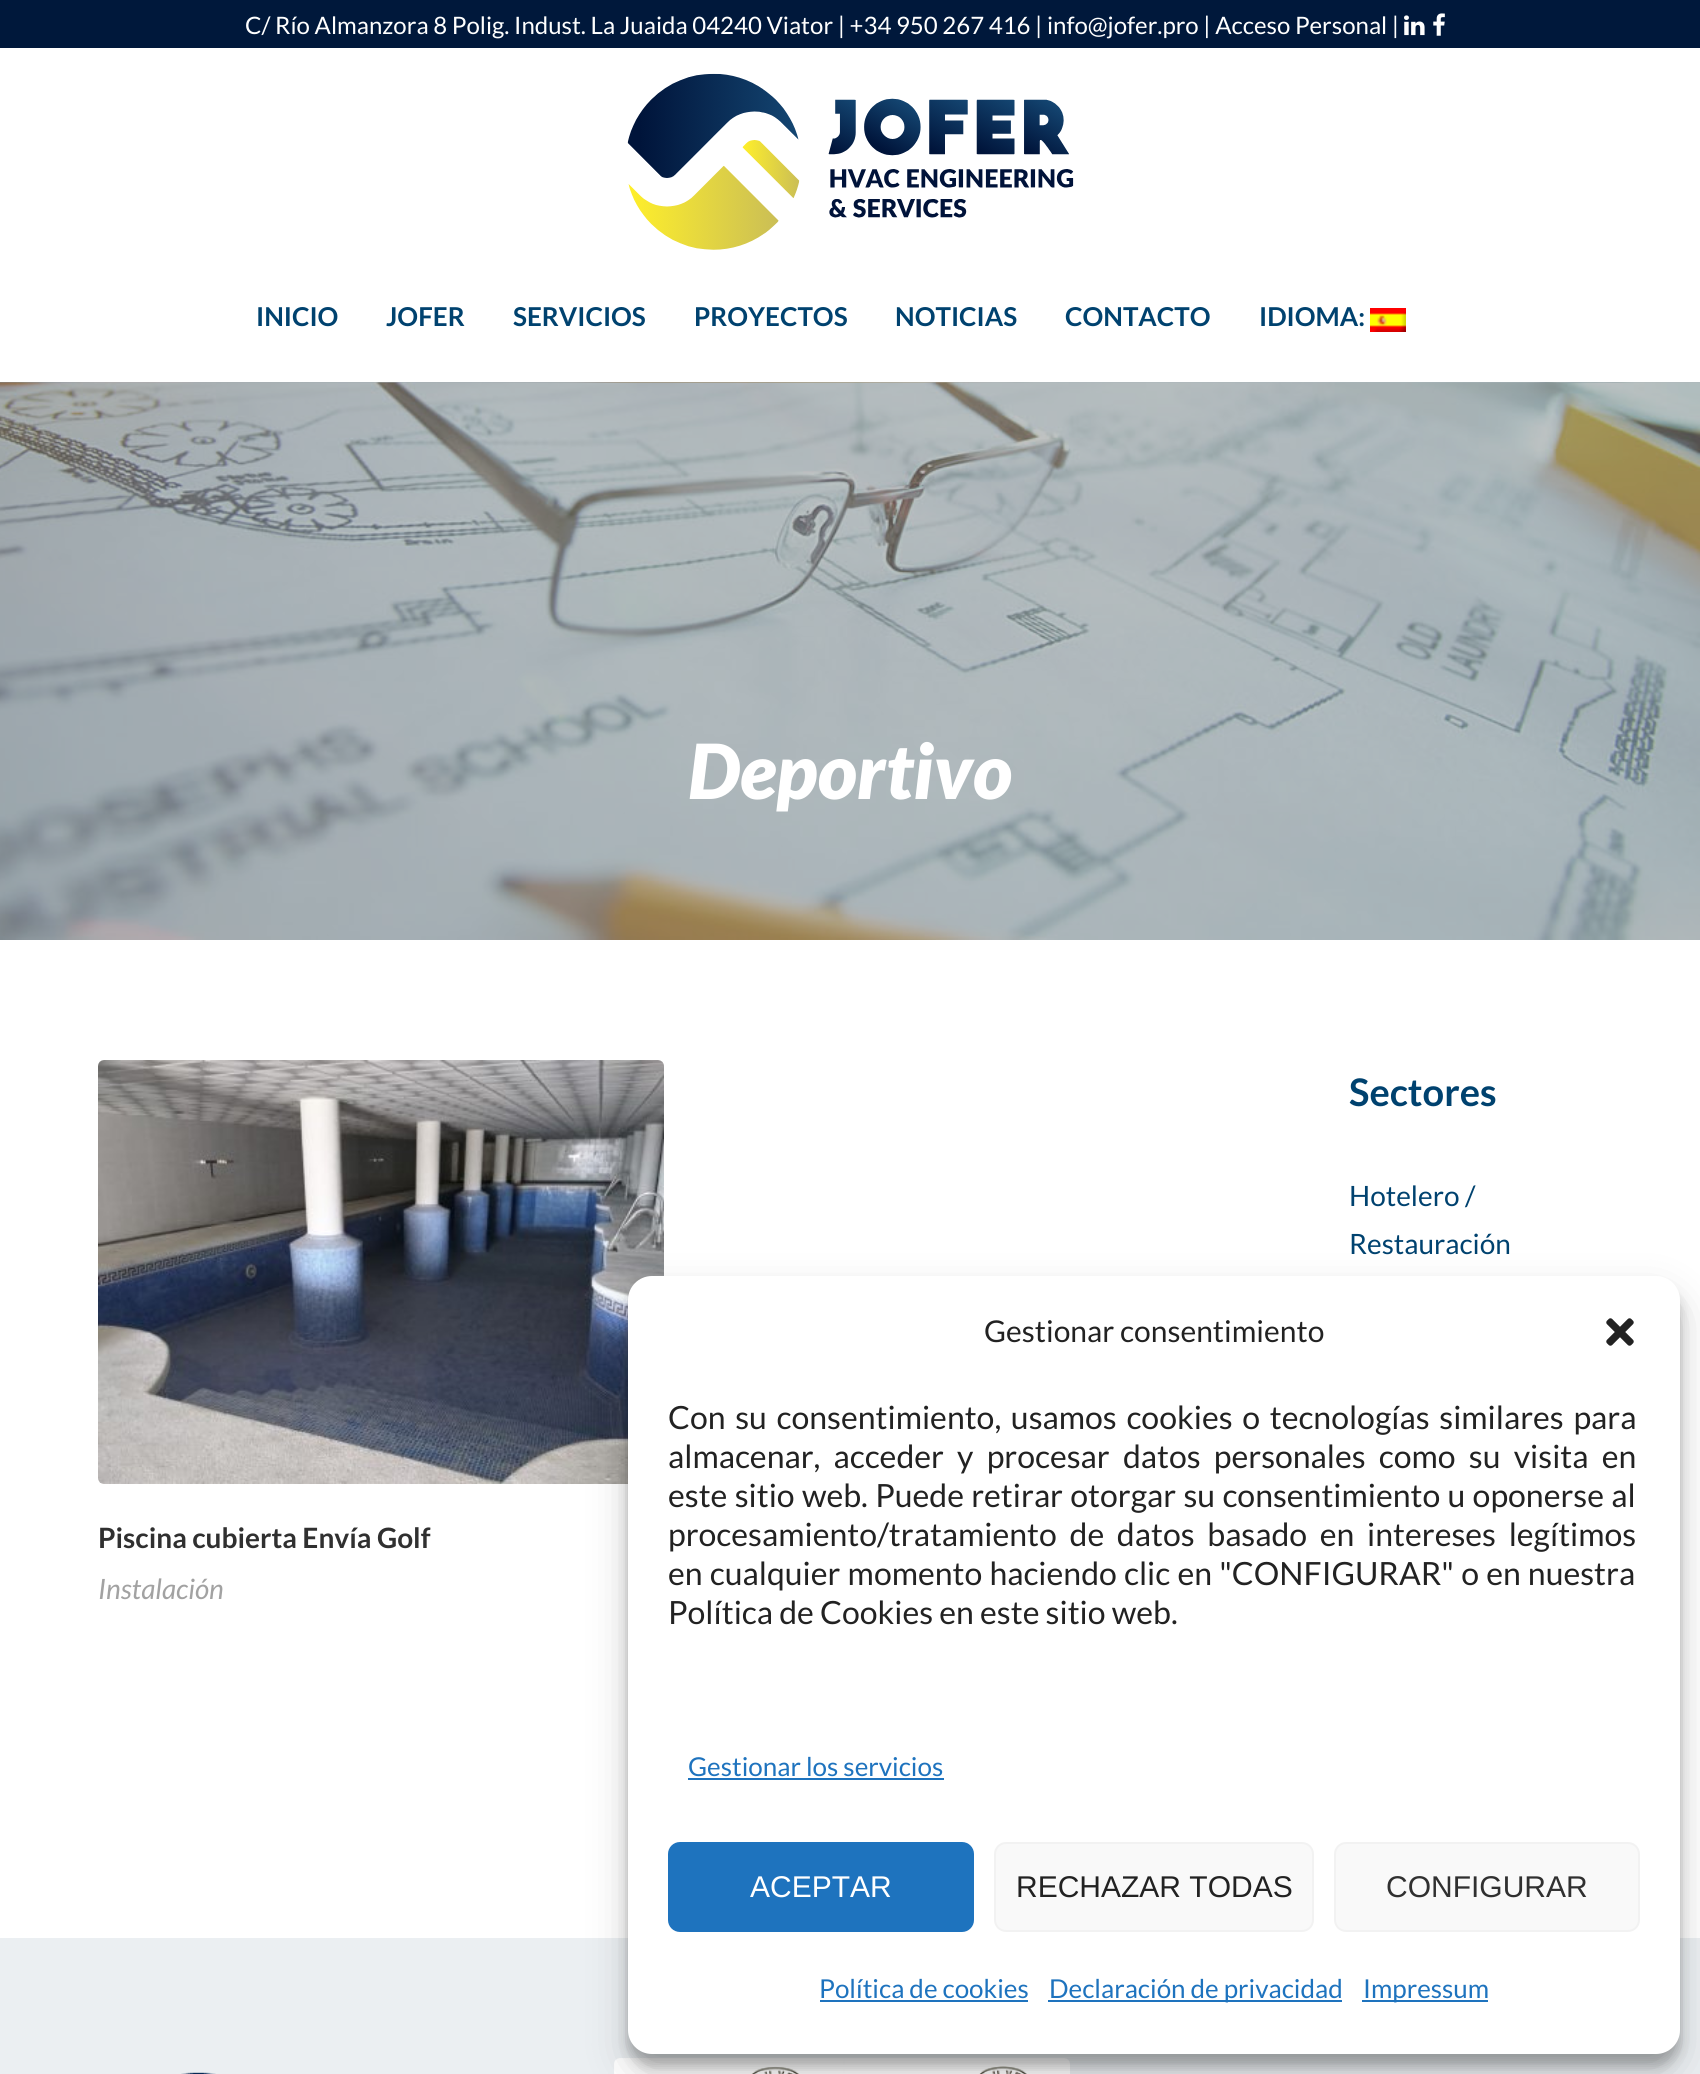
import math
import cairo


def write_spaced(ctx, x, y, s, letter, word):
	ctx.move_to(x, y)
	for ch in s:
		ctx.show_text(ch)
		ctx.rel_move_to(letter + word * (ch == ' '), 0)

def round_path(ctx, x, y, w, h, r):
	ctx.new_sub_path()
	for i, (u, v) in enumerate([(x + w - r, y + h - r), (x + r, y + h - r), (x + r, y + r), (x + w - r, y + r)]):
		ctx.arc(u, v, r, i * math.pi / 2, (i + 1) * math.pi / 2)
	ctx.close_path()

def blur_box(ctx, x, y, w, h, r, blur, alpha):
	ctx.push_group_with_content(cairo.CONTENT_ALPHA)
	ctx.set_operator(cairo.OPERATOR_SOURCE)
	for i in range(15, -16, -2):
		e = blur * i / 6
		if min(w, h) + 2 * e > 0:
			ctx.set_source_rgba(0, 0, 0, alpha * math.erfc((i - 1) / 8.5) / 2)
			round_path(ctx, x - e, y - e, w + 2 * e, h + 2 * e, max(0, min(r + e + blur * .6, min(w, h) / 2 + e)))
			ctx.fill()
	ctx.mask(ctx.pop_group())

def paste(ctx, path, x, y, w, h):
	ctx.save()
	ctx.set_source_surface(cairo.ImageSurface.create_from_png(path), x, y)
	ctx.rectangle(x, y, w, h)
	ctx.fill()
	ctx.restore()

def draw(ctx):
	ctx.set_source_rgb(1, 1, 1)
	ctx.paint()
	ctx.set_source_rgb(0, 0.094, 0.231)
	ctx.rectangle(0, 0, 1700, 48)
	ctx.fill()
	ctx.select_font_face('Lato')
	ctx.set_font_size(24)
	ctx.set_source_rgb(1, 1, 1)
	ctx.move_to(245, 34)
	ctx.show_text('C/ Río Almanzora 8 Polig. Indust. La Juaida 04240 Viator | +34 950 267 416 | info@jofer.pro | Acceso Personal |')
	paste(ctx, 'media/1.png', 1404, 15, 21, 21)
	paste(ctx, 'media/2.png', 1433, 13, 12, 23)
	paste(ctx, 'media/3.png', 627, 73, 447, 177)
	ctx.select_font_face('Lato', cairo.FONT_SLANT_NORMAL, cairo.FONT_WEIGHT_BOLD)
	ctx.set_font_size(26)
	ctx.set_source_rgb(0, 0.259, 0.435)
	for x, y, s in [
		(256, 326, 'INICIO'),
		(386, 326, 'JOFER'),
		(513, 326, 'SERVICIOS'),
		(694, 326, 'PROYECTOS'),
		(895, 326, 'NOTICIAS'),
		(1065, 326, 'CONTACTO'),
		(1259, 326, 'IDIOMA:'),
	]:
		ctx.move_to(x, y)
		ctx.show_text(s)
	paste(ctx, 'media/4.png', 1370, 308, 36, 24)
	paste(ctx, 'media/5.png', 0, 382, 1700, 558)
	ctx.select_font_face('Lato Black', cairo.FONT_SLANT_ITALIC)
	ctx.set_font_size(76)
	ctx.set_source_rgb(1, 1, 1)
	ctx.move_to(688, 799)
	ctx.show_text('Deportivo')
	ctx.select_font_face('Lato', cairo.FONT_SLANT_NORMAL, cairo.FONT_WEIGHT_BOLD)
	ctx.set_font_size(38)
	ctx.set_source_rgb(0, 0.259, 0.435)
	ctx.move_to(1349, 1106)
	ctx.show_text('Sectores')
	ctx.select_font_face('Lato')
	ctx.set_font_size(28)
	ctx.move_to(1349, 1206)
	ctx.show_text('Hotelero /')
	ctx.move_to(1349, 1254)
	ctx.show_text('Restauración')
	paste(ctx, 'media/6.png', 98, 1060, 566, 424)
	ctx.select_font_face('Lato', cairo.FONT_SLANT_NORMAL, cairo.FONT_WEIGHT_BOLD)
	ctx.set_source_rgb(0.188, 0.188, 0.188)
	ctx.move_to(98, 1548)
	ctx.show_text('Piscina cubierta Envía Golf')
	ctx.select_font_face('Lato', cairo.FONT_SLANT_ITALIC)
	ctx.set_source_rgb(0.635, 0.635, 0.635)
	ctx.move_to(98, 1599)
	ctx.show_text('Instalación')
	ctx.set_source_rgb(0.918, 0.937, 0.949)
	ctx.rectangle(0, 1938, 1700, 136)
	ctx.fill()
	paste(ctx, 'media/7.png', 181, 2072, 35, 2)
	paste(ctx, 'media/8.png', 614, 2058, 456, 16)
	ctx.set_source_rgb(0, 0, 0)
	blur_box(ctx, 628, 1288, 1052, 778, 24, 6, 0.23)
	blur_box(ctx, 628, 1296, 1052, 778, 24, 20, 0.19)
	ctx.set_source_rgb(1, 1, 1)
	round_path(ctx, 628, 1276, 1052, 778, 24)
	ctx.fill()
	ctx.select_font_face('Lato')
	ctx.set_font_size(30)
	ctx.set_source_rgb(0.133, 0.133, 0.133)
	ctx.move_to(984, 1342)
	ctx.show_text('Gestionar consentimiento')
	paste(ctx, 'media/9.png', 1606, 1318, 28, 28)
	ctx.set_font_size(32)
	write_spaced(ctx, 668, 1429, 'Con su consentimiento, usamos cookies o tecnologías similares para', 0, 3.5)
	write_spaced(ctx, 668, 1468, 'almacenar, acceder y procesar datos personales como su visita en', 0, 7)
	write_spaced(ctx, 668, 1507, 'este sitio web. Puede retirar otorgar su consentimiento u oponerse al', 0, 1.1)
	write_spaced(ctx, 668, 1546, 'procesamiento/tratamiento de datos basado en intereses legítimos', 0, 6.5)
	write_spaced(ctx, 668, 1585, 'en cualquier momento haciendo clic en "CONFIGURAR" o en nuestra', 0, 1)
	ctx.move_to(668, 1624)
	ctx.show_text('Política de Cookies en este sitio web.')
	ctx.set_font_size(26)
	ctx.set_source_rgb(0.118, 0.451, 0.745)
	ctx.move_to(688, 1776)
	ctx.show_text('Gestionar los servicios')
	ctx.rectangle(688, 1778, 256, 2)
	ctx.fill()
	round_path(ctx, 669, 1843, 304, 88, 11)
	ctx.fill_preserve()
	ctx.stroke()
	ctx.select_font_face('Liberation Sans')
	ctx.set_font_size(30)
	ctx.set_source_rgb(1, 1, 1)
	ctx.move_to(750, 1897)
	ctx.show_text('ACEPTAR')
	ctx.set_source_rgb(0.976, 0.976, 0.976)
	round_path(ctx, 995, 1843, 318, 88, 11)
	ctx.fill_preserve()
	ctx.set_source_rgb(0.949, 0.949, 0.949)
	ctx.stroke()
	ctx.set_source_rgb(0.133, 0.133, 0.133)
	ctx.move_to(1016, 1897)
	ctx.show_text('RECHAZAR TODAS')
	ctx.set_source_rgb(0.976, 0.976, 0.976)
	round_path(ctx, 1335, 1843, 304, 88, 11)
	ctx.fill_preserve()
	ctx.set_source_rgb(0.949, 0.949, 0.949)
	ctx.stroke()
	ctx.set_source_rgb(0.188, 0.188, 0.188)
	ctx.move_to(1386, 1897)
	ctx.show_text('CONFIGURAR')
	ctx.select_font_face('Lato')
	ctx.set_font_size(26)
	ctx.set_source_rgb(0.118, 0.451, 0.745)
	ctx.move_to(819, 1998)
	ctx.show_text('Política de cookies')
	ctx.rectangle(820, 2000, 208, 2)
	ctx.fill()
	ctx.rectangle(1048, 2000, 294, 2)
	ctx.fill()
	ctx.move_to(1049, 1998)
	ctx.show_text('Declaración de privacidad')
	ctx.rectangle(1362, 2000, 126, 2)
	ctx.fill()
	ctx.move_to(1363, 1998)
	ctx.show_text('Impressum')


surface = cairo.ImageSurface(cairo.FORMAT_RGB24, 1700, 2074)
ctx = cairo.Context(surface)
options = cairo.FontOptions()
options.set_hint_metrics(cairo.HINT_METRICS_OFF)
options.set_hint_style(cairo.HINT_STYLE_NONE)
ctx.set_font_options(options)
ctx.set_miter_limit(4)
draw(ctx)
surface.write_to_png('image.png')
